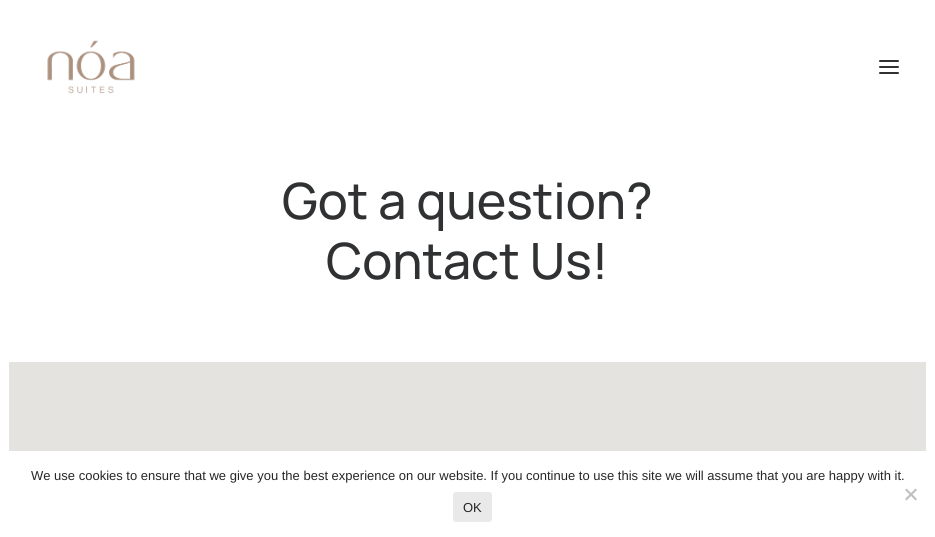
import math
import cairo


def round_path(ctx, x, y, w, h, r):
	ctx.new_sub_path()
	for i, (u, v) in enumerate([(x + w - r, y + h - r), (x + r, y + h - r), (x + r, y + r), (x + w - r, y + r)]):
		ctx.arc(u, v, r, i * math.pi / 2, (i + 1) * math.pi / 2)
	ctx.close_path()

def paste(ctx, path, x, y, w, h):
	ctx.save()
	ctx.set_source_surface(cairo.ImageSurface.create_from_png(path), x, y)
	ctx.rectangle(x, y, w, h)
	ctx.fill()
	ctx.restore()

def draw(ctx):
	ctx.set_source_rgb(1, 1, 1)
	ctx.paint()
	paste(ctx, 'media/1.png', 47, 40, 88, 54)
	ctx.set_source_rgb(0.188, 0.192, 0.2)
	round_path(ctx, 879, 66, 20, 2, 1)
	ctx.fill()
	round_path(ctx, 879, 60, 20, 2, 1)
	ctx.fill()
	round_path(ctx, 879, 72, 20, 2, 1)
	ctx.fill()
	ctx.select_font_face('Manrope Medium')
	ctx.set_font_size(50)
	ctx.move_to(282, 219)
	ctx.show_text('Got a question?')
	ctx.move_to(326, 279)
	ctx.show_text('Contact Us!')
	ctx.set_source_rgb(0.898, 0.89, 0.875)
	ctx.rectangle(9, 362, 917, 89)
	ctx.fill()
	ctx.select_font_face('Liberation Sans')
	ctx.set_font_size(13)
	ctx.set_source_rgb(0.149, 0.149, 0.149)
	ctx.move_to(31, 480)
	ctx.show_text('We use cookies to ensure that we give you the best experience on our website. If you continue to use this site we will assume that you are happy with it.')
	ctx.set_source_rgb(0.753, 0.753, 0.753)
	ctx.new_path()
	ctx.move_to(915.5, 488.5)
	ctx.line_to(917, 490)
	ctx.line_to(906.5, 500.5)
	ctx.line_to(905, 499)
	ctx.close_path()
	ctx.fill()
	ctx.new_path()
	ctx.move_to(905, 490)
	ctx.line_to(906.5, 488.5)
	ctx.line_to(917, 499)
	ctx.line_to(915.5, 500.5)
	ctx.close_path()
	ctx.fill()
	ctx.set_source_rgb(0.914, 0.914, 0.914)
	round_path(ctx, 453, 492, 39, 30, 3)
	ctx.fill()
	ctx.set_source_rgb(0.149, 0.149, 0.149)
	ctx.move_to(463, 512)
	ctx.show_text('OK')


surface = cairo.ImageSurface(cairo.FORMAT_RGB24, 935, 537)
ctx = cairo.Context(surface)
options = cairo.FontOptions()
options.set_hint_metrics(cairo.HINT_METRICS_OFF)
options.set_hint_style(cairo.HINT_STYLE_NONE)
ctx.set_font_options(options)
ctx.set_miter_limit(4)
draw(ctx)
surface.write_to_png('image.png')
